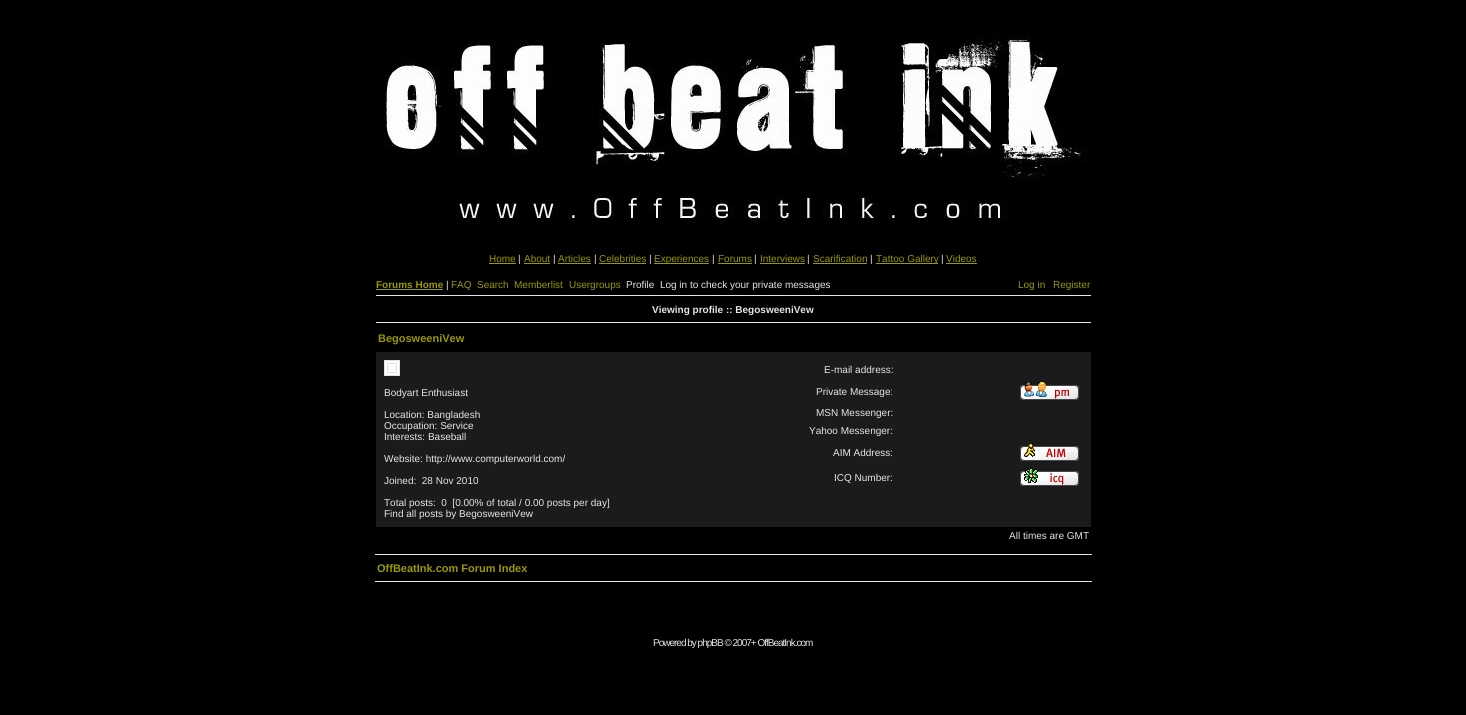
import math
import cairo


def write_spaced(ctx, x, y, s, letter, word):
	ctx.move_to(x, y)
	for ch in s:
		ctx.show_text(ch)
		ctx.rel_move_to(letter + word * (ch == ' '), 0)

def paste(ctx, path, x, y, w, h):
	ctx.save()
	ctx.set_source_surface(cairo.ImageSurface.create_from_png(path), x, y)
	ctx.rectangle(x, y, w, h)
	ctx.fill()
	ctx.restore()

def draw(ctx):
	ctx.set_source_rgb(0, 0, 0)
	ctx.paint()
	paste(ctx, 'media/1.png', 383, 35, 704, 184)
	ctx.select_font_face('Liberation Sans')
	ctx.set_font_size(10)
	ctx.set_source_rgb(0.6, 0.6, 0)
	ctx.move_to(489, 262)
	ctx.show_text('Home')
	ctx.rectangle(489, 263, 27, 1)
	ctx.fill()
	ctx.set_source_rgb(0.898, 0.898, 0.898)
	ctx.move_to(518, 262)
	ctx.show_text('|')
	ctx.set_source_rgb(0.6, 0.6, 0)
	ctx.move_to(524, 262)
	ctx.show_text('About')
	ctx.rectangle(524, 263, 26, 1)
	ctx.fill()
	ctx.set_source_rgb(0.898, 0.898, 0.898)
	ctx.move_to(553, 262)
	ctx.show_text('|')
	ctx.set_source_rgb(0.6, 0.6, 0)
	ctx.move_to(558, 262)
	ctx.show_text('Articles')
	ctx.rectangle(558, 263, 33, 1)
	ctx.fill()
	ctx.set_source_rgb(0.898, 0.898, 0.898)
	ctx.move_to(594, 262)
	ctx.show_text('|')
	ctx.set_source_rgb(0.6, 0.6, 0)
	ctx.move_to(599, 262)
	ctx.show_text('Celebrities')
	ctx.rectangle(599, 263, 47, 1)
	ctx.fill()
	ctx.set_source_rgb(0.898, 0.898, 0.898)
	ctx.move_to(649, 262)
	ctx.show_text('|')
	ctx.set_source_rgb(0.6, 0.6, 0)
	ctx.rectangle(654, 263, 55, 1)
	ctx.fill()
	ctx.move_to(654, 262)
	ctx.show_text('Experiences')
	ctx.set_source_rgb(0.898, 0.898, 0.898)
	ctx.move_to(712, 262)
	ctx.show_text('|')
	ctx.set_source_rgb(0.6, 0.6, 0)
	ctx.move_to(718, 262)
	ctx.show_text('Forums')
	ctx.rectangle(718, 263, 34, 1)
	ctx.fill()
	ctx.set_source_rgb(0.898, 0.898, 0.898)
	ctx.move_to(754, 262)
	ctx.show_text('|')
	ctx.set_source_rgb(0.6, 0.6, 0)
	ctx.move_to(760, 262)
	ctx.show_text('Interviews')
	ctx.rectangle(760, 263, 45, 1)
	ctx.fill()
	ctx.set_source_rgb(0.898, 0.898, 0.898)
	ctx.move_to(807, 262)
	ctx.show_text('|')
	ctx.set_source_rgb(0.6, 0.6, 0)
	ctx.move_to(813, 262)
	ctx.show_text('Scarification')
	ctx.rectangle(813, 263, 54, 1)
	ctx.fill()
	ctx.set_source_rgb(0.898, 0.898, 0.898)
	ctx.move_to(870, 262)
	ctx.show_text('|')
	ctx.set_source_rgb(0.6, 0.6, 0)
	ctx.rectangle(876, 263, 62, 1)
	ctx.fill()
	ctx.move_to(876, 262)
	ctx.show_text('Tattoo Gallery')
	ctx.set_source_rgb(0.898, 0.898, 0.898)
	ctx.move_to(941, 262)
	ctx.show_text('|')
	ctx.set_source_rgb(0.6, 0.6, 0)
	ctx.move_to(946, 262)
	ctx.show_text('Videos')
	ctx.rectangle(946, 263, 31, 1)
	ctx.fill()
	ctx.select_font_face('Liberation Sans', cairo.FONT_SLANT_NORMAL, cairo.FONT_WEIGHT_BOLD)
	ctx.move_to(376, 288)
	ctx.show_text('Forums Home')
	ctx.rectangle(376, 289, 67, 1)
	ctx.fill()
	ctx.select_font_face('Liberation Sans')
	ctx.set_source_rgb(0.898, 0.898, 0.898)
	ctx.move_to(446, 288)
	ctx.show_text('|')
	ctx.set_source_rgb(0.6, 0.6, 0)
	for x, y, s in [
		(451, 288, 'FAQ'),
		(477, 288, 'Search'),
		(514, 288, 'Memberlist'),
		(569, 288, 'Usergroups'),
	]:
		ctx.move_to(x, y)
		ctx.show_text(s)
	ctx.set_source_rgb(0.898, 0.898, 0.898)
	ctx.move_to(626, 288)
	ctx.show_text('Profile  Log in to check your private messages')
	ctx.set_source_rgb(0.6, 0.6, 0)
	ctx.move_to(1018, 288)
	ctx.show_text('Log in')
	ctx.move_to(1053, 288)
	ctx.show_text('Register')
	ctx.set_source_rgb(0.898, 0.898, 0.898)
	ctx.rectangle(376, 295, 715, 1)
	ctx.fill()
	ctx.rectangle(376, 322, 715, 1)
	ctx.fill()
	ctx.select_font_face('Liberation Sans', cairo.FONT_SLANT_NORMAL, cairo.FONT_WEIGHT_BOLD)
	ctx.move_to(652, 313)
	ctx.show_text('Viewing profile :: BegosweeniVew')
	ctx.set_font_size(11)
	ctx.set_source_rgb(0.6, 0.6, 0)
	ctx.move_to(378, 342)
	ctx.show_text('BegosweeniVew')
	ctx.set_source_rgb(0.106, 0.106, 0.106)
	ctx.rectangle(376, 352, 715, 175)
	ctx.fill()
	ctx.set_source_rgb(1, 1, 1)
	ctx.rectangle(384.5, 360.5, 15, 15)
	ctx.fill_preserve()
	ctx.set_source_rgb(0.89, 0.89, 0.89)
	ctx.set_line_width(1)
	ctx.stroke()
	ctx.rectangle(387.5, 363.5, 9, 9)
	ctx.stroke()
	ctx.select_font_face('Liberation Sans')
	ctx.set_font_size(10)
	ctx.set_source_rgb(0.898, 0.898, 0.898)
	for x, y, s in [
		(384, 396, 'Bodyart Enthusiast'),
		(384, 418, 'Location: Bangladesh'),
		(384, 429, 'Occupation: Service'),
		(384, 440, 'Interests: Baseball'),
		(384, 462, 'Website: http://www.computerworld.com/'),
		(384, 484, 'Joined:  28 Nov 2010'),
		(384, 506, 'Total posts:  0  [0.00% of total / 0.00 posts per day]'),
		(384, 517, 'Find all posts by BegosweeniVew'),
		(824, 373, 'E-mail address:'),
		(816, 395, 'Private Message:'),
	]:
		ctx.move_to(x, y)
		ctx.show_text(s)
	paste(ctx, 'media/2.png', 1020, 382, 59, 18)
	for x, y, s in [
		(816, 416, 'MSN Messenger:'),
		(809, 434, 'Yahoo Messenger:'),
		(833, 456, 'AIM Address:'),
	]:
		ctx.move_to(x, y)
		ctx.show_text(s)
	paste(ctx, 'media/3.png', 1020, 443, 59, 18)
	ctx.move_to(834, 481)
	ctx.show_text('ICQ Number:')
	paste(ctx, 'media/4.png', 1020, 468, 59, 18)
	ctx.move_to(1009, 539)
	ctx.show_text('All times are GMT')
	ctx.rectangle(375, 554, 717, 1)
	ctx.fill()
	ctx.rectangle(375, 581, 717, 1)
	ctx.fill()
	ctx.select_font_face('Liberation Sans', cairo.FONT_SLANT_NORMAL, cairo.FONT_WEIGHT_BOLD)
	ctx.set_font_size(11)
	ctx.set_source_rgb(0.6, 0.6, 0)
	ctx.move_to(377, 572)
	ctx.show_text('OffBeatInk.com Forum Index')
	ctx.select_font_face('Liberation Sans')
	ctx.set_font_size(10)
	ctx.set_source_rgb(0.898, 0.898, 0.898)
	write_spaced(ctx, 653, 646, 'Powered by phpBB © 2007+ OffBeatInk.com', -1, 0)


surface = cairo.ImageSurface(cairo.FORMAT_RGB24, 1466, 715)
ctx = cairo.Context(surface)
options = cairo.FontOptions()
options.set_hint_metrics(cairo.HINT_METRICS_OFF)
options.set_hint_style(cairo.HINT_STYLE_NONE)
ctx.set_font_options(options)
ctx.set_miter_limit(4)
draw(ctx)
surface.write_to_png('image.png')
